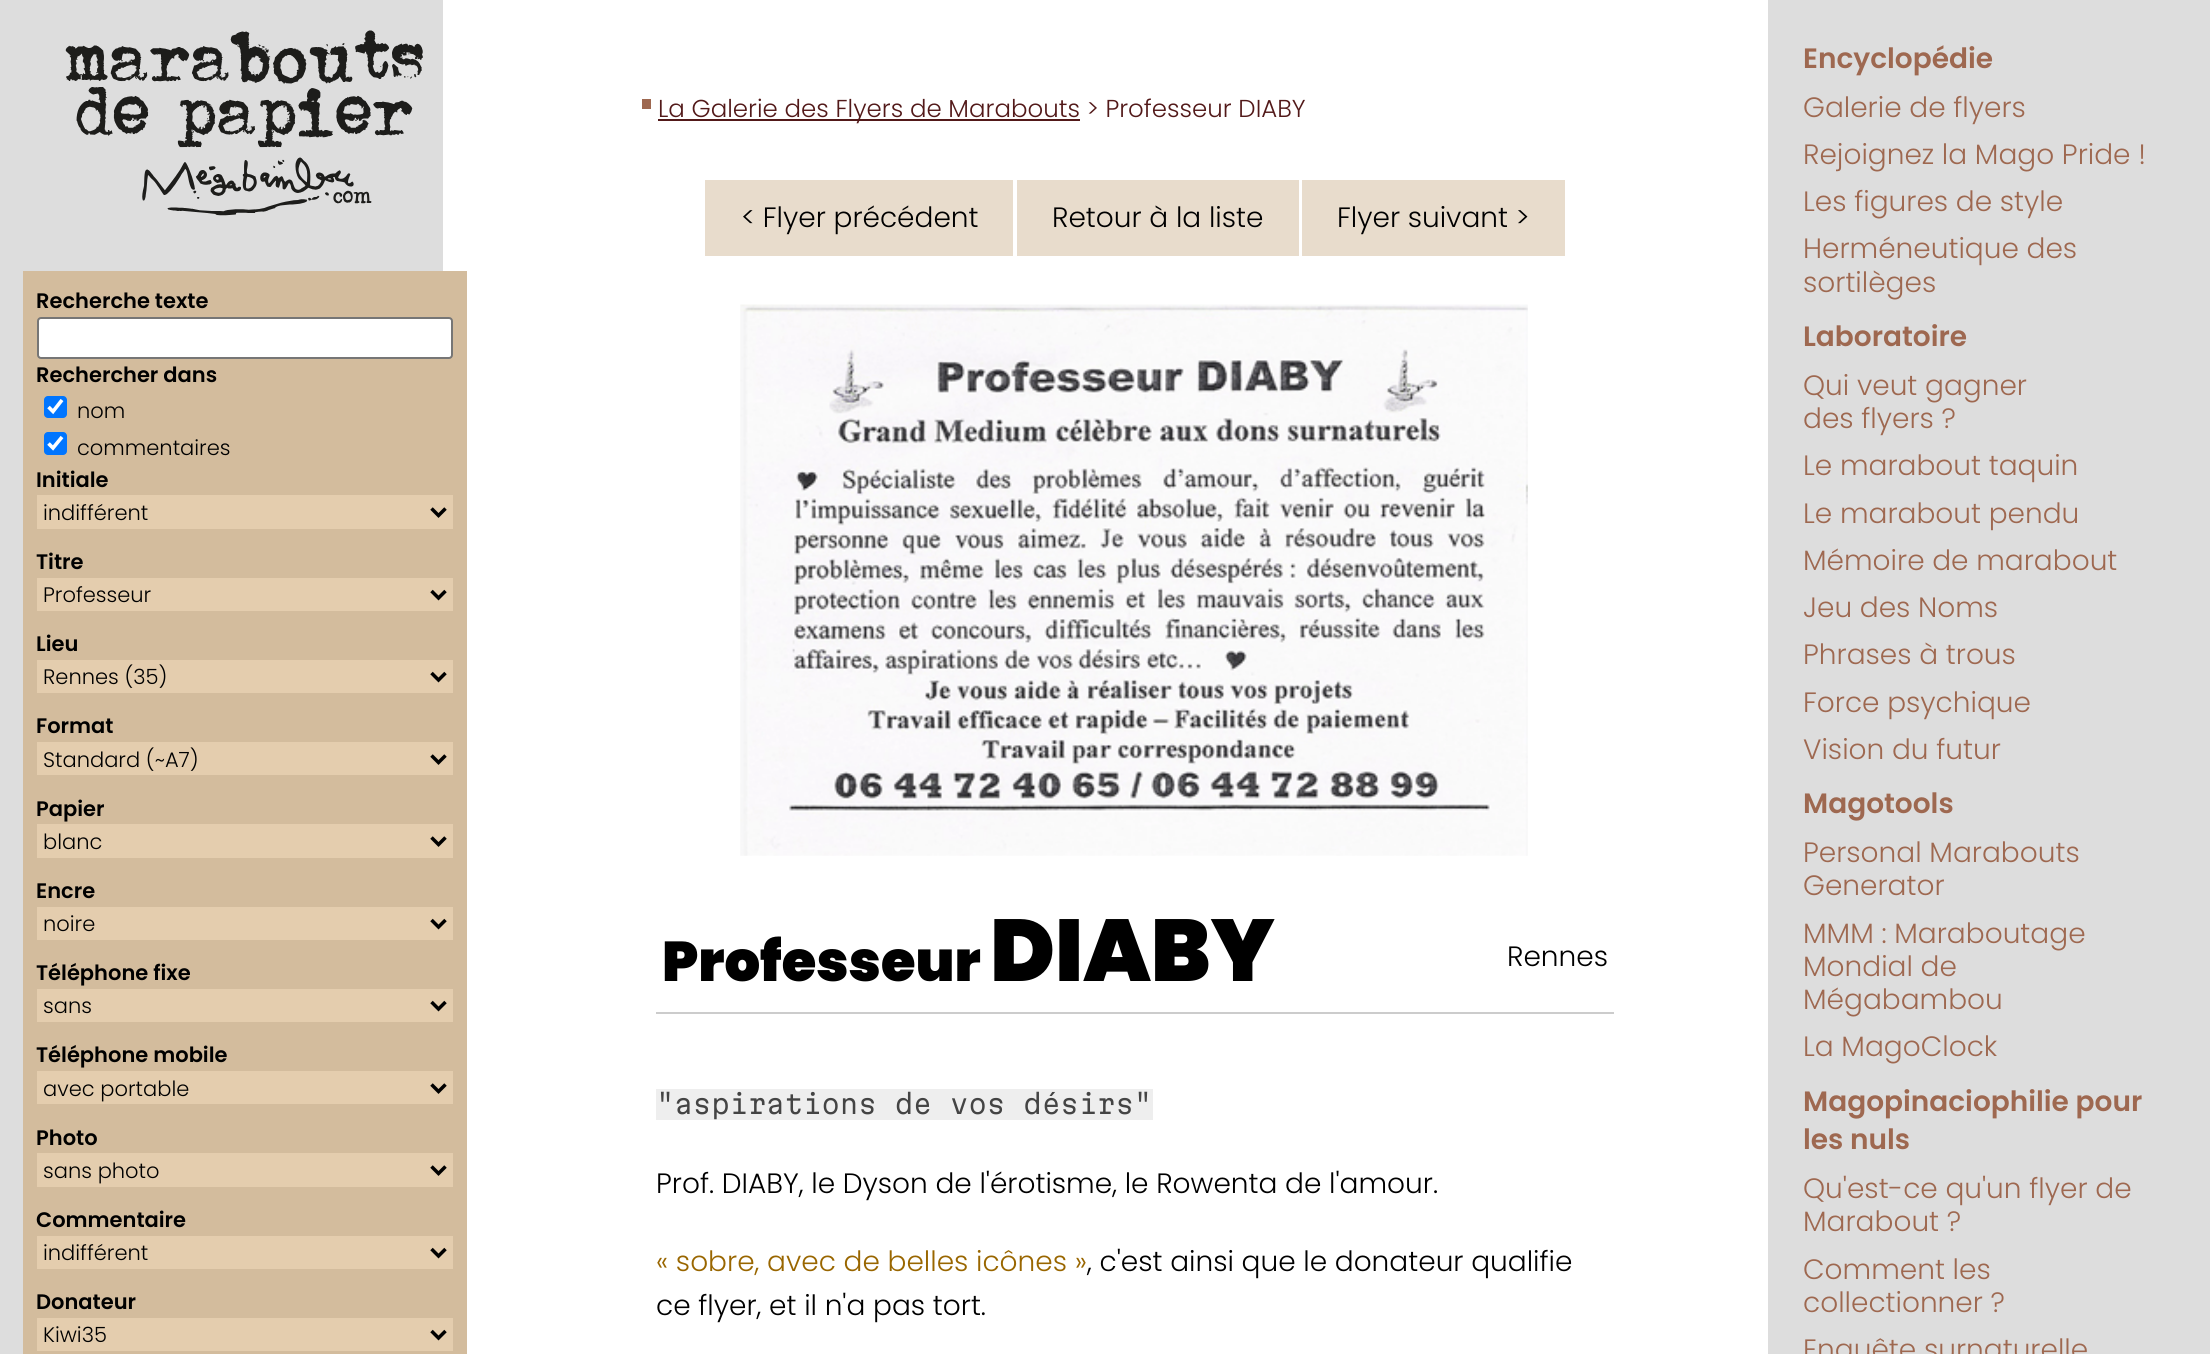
import math
import cairo


def round_path(ctx, x, y, w, h, r):
	ctx.new_sub_path()
	for i, (u, v) in enumerate([(x + w - r, y + h - r), (x + r, y + h - r), (x + r, y + r), (x + w - r, y + r)]):
		ctx.arc(u, v, r, i * math.pi / 2, (i + 1) * math.pi / 2)
	ctx.close_path()

def paste(ctx, path, x, y, w, h):
	ctx.save()
	ctx.set_source_surface(cairo.ImageSurface.create_from_png(path), x, y)
	ctx.rectangle(x, y, w, h)
	ctx.fill()
	ctx.restore()

def draw(ctx):
	ctx.set_source_rgb(0.867, 0.867, 0.867)
	ctx.paint()
	ctx.set_source_rgb(1, 1, 1)
	ctx.rectangle(443, 0, 1325, 1354)
	ctx.fill()
	paste(ctx, 'media/1.png', 65, 30, 358, 186)
	ctx.set_source_rgb(0.827, 0.737, 0.616)
	ctx.rectangle(23, 271, 444, 1083)
	ctx.fill()
	ctx.select_font_face('Poppins SemiBold')
	ctx.set_font_size(21)
	ctx.set_source_rgb(0, 0, 0)
	ctx.move_to(36, 308)
	ctx.show_text('Recherche texte')
	ctx.set_source_rgb(1, 1, 1)
	round_path(ctx, 38, 318, 414, 40, 3)
	ctx.fill_preserve()
	ctx.set_source_rgb(0.463, 0.463, 0.463)
	ctx.stroke()
	ctx.set_source_rgb(0, 0, 0)
	ctx.move_to(36, 382)
	ctx.show_text('Rechercher dans')
	ctx.set_source_rgb(0, 0.459, 1)
	round_path(ctx, 44, 396, 23, 22, 4)
	ctx.fill()
	ctx.new_path()
	ctx.move_to(48.5, 407)
	ctx.line_to(53, 411.5)
	ctx.line_to(62, 400)
	ctx.set_source_rgb(1, 1, 1)
	ctx.set_line_width(3.6)
	ctx.stroke()
	ctx.select_font_face('Poppins Light')
	ctx.set_source_rgb(0, 0, 0)
	ctx.move_to(77, 418)
	ctx.show_text('nom')
	ctx.set_source_rgb(0, 0.459, 1)
	round_path(ctx, 44, 432, 23, 23, 4)
	ctx.fill()
	ctx.new_path()
	ctx.move_to(48.5, 443.5)
	ctx.line_to(53, 448)
	ctx.line_to(62, 437)
	ctx.set_source_rgb(1, 1, 1)
	ctx.stroke()
	ctx.set_source_rgb(0, 0, 0)
	ctx.move_to(77, 455)
	ctx.show_text('commentaires')
	ctx.select_font_face('Poppins SemiBold')
	ctx.move_to(36, 487)
	ctx.show_text('Initiale')
	ctx.set_source_rgb(0.894, 0.804, 0.682)
	ctx.rectangle(37, 495, 416, 34)
	ctx.fill()
	ctx.new_path()
	ctx.move_to(431.5, 508.5)
	ctx.line_to(438.5, 515.5)
	ctx.line_to(445.5, 508.5)
	ctx.set_source_rgb(0, 0, 0)
	ctx.set_line_width(3.5)
	ctx.stroke()
	ctx.select_font_face('Poppins Light')
	ctx.move_to(43, 520)
	ctx.show_text('indifférent')
	ctx.select_font_face('Poppins SemiBold')
	ctx.move_to(36, 569)
	ctx.show_text('Titre')
	ctx.set_source_rgb(0.894, 0.804, 0.682)
	ctx.rectangle(37, 578, 416, 33)
	ctx.fill()
	ctx.new_path()
	ctx.move_to(431.5, 591)
	ctx.line_to(438.5, 598)
	ctx.line_to(445.5, 591)
	ctx.set_source_rgb(0, 0, 0)
	ctx.stroke()
	ctx.select_font_face('Poppins Light')
	ctx.move_to(43, 602)
	ctx.show_text('Professeur')
	ctx.select_font_face('Poppins SemiBold')
	ctx.move_to(36, 651)
	ctx.show_text('Lieu')
	ctx.set_source_rgb(0.894, 0.804, 0.682)
	ctx.rectangle(37, 660, 416, 33)
	ctx.fill()
	ctx.new_path()
	ctx.move_to(431.5, 673)
	ctx.line_to(438.5, 680)
	ctx.line_to(445.5, 673)
	ctx.set_source_rgb(0, 0, 0)
	ctx.stroke()
	ctx.select_font_face('Poppins Light')
	ctx.move_to(43, 684)
	ctx.show_text('Rennes (35)')
	ctx.select_font_face('Poppins SemiBold')
	ctx.move_to(36, 733)
	ctx.show_text('Format')
	ctx.set_source_rgb(0.894, 0.804, 0.682)
	ctx.rectangle(37, 742, 416, 33)
	ctx.fill()
	ctx.new_path()
	ctx.move_to(431.5, 755.5)
	ctx.line_to(438.5, 762.5)
	ctx.line_to(445.5, 755.5)
	ctx.set_source_rgb(0, 0, 0)
	ctx.stroke()
	ctx.select_font_face('Poppins Light')
	ctx.move_to(43, 767)
	ctx.show_text('Standard (~A7)')
	ctx.select_font_face('Poppins SemiBold')
	ctx.move_to(36, 816)
	ctx.show_text('Papier')
	ctx.set_source_rgb(0.894, 0.804, 0.682)
	ctx.rectangle(37, 824, 416, 34)
	ctx.fill()
	ctx.new_path()
	ctx.move_to(431.5, 837.5)
	ctx.line_to(438.5, 844.5)
	ctx.line_to(445.5, 837.5)
	ctx.set_source_rgb(0, 0, 0)
	ctx.stroke()
	ctx.select_font_face('Poppins Light')
	ctx.move_to(43, 849)
	ctx.show_text('blanc')
	ctx.select_font_face('Poppins SemiBold')
	ctx.move_to(36, 898)
	ctx.show_text('Encre')
	ctx.set_source_rgb(0.894, 0.804, 0.682)
	ctx.rectangle(37, 907, 416, 33)
	ctx.fill()
	ctx.new_path()
	ctx.move_to(431.5, 920)
	ctx.line_to(438.5, 927)
	ctx.line_to(445.5, 920)
	ctx.set_source_rgb(0, 0, 0)
	ctx.stroke()
	ctx.select_font_face('Poppins Light')
	ctx.move_to(43, 931)
	ctx.show_text('noire')
	ctx.select_font_face('Poppins SemiBold')
	ctx.move_to(36, 980)
	ctx.show_text('Téléphone fixe')
	ctx.set_source_rgb(0.894, 0.804, 0.682)
	ctx.rectangle(37, 989, 416, 33)
	ctx.fill()
	ctx.new_path()
	ctx.move_to(431.5, 1002)
	ctx.line_to(438.5, 1009)
	ctx.line_to(445.5, 1002)
	ctx.set_source_rgb(0, 0, 0)
	ctx.stroke()
	ctx.select_font_face('Poppins Light')
	ctx.move_to(43, 1013)
	ctx.show_text('sans')
	ctx.select_font_face('Poppins SemiBold')
	ctx.move_to(36, 1062)
	ctx.show_text('Téléphone mobile')
	ctx.set_source_rgb(0.894, 0.804, 0.682)
	ctx.rectangle(37, 1071, 416, 33)
	ctx.fill()
	ctx.new_path()
	ctx.move_to(431.5, 1084.5)
	ctx.line_to(438.5, 1091.5)
	ctx.line_to(445.5, 1084.5)
	ctx.set_source_rgb(0, 0, 0)
	ctx.stroke()
	ctx.select_font_face('Poppins Light')
	ctx.move_to(43, 1096)
	ctx.show_text('avec portable')
	ctx.select_font_face('Poppins SemiBold')
	ctx.move_to(36, 1145)
	ctx.show_text('Photo')
	ctx.set_source_rgb(0.894, 0.804, 0.682)
	ctx.rectangle(37, 1153, 416, 34)
	ctx.fill()
	ctx.new_path()
	ctx.move_to(431.5, 1166.5)
	ctx.line_to(438.5, 1173.5)
	ctx.line_to(445.5, 1166.5)
	ctx.set_source_rgb(0, 0, 0)
	ctx.stroke()
	ctx.select_font_face('Poppins Light')
	ctx.move_to(43, 1178)
	ctx.show_text('sans photo')
	ctx.select_font_face('Poppins SemiBold')
	ctx.move_to(36, 1227)
	ctx.show_text('Commentaire')
	ctx.set_source_rgb(0.894, 0.804, 0.682)
	ctx.rectangle(37, 1236, 416, 33)
	ctx.fill()
	ctx.new_path()
	ctx.move_to(431.5, 1249)
	ctx.line_to(438.5, 1256)
	ctx.line_to(445.5, 1249)
	ctx.set_source_rgb(0, 0, 0)
	ctx.stroke()
	ctx.select_font_face('Poppins Light')
	ctx.move_to(43, 1260)
	ctx.show_text('indifférent')
	ctx.select_font_face('Poppins SemiBold')
	ctx.move_to(36, 1309)
	ctx.show_text('Donateur')
	ctx.set_source_rgb(0.894, 0.804, 0.682)
	ctx.rectangle(37, 1318, 416, 33)
	ctx.fill()
	ctx.new_path()
	ctx.move_to(431.5, 1331)
	ctx.line_to(438.5, 1338)
	ctx.line_to(445.5, 1331)
	ctx.set_source_rgb(0, 0, 0)
	ctx.stroke()
	ctx.select_font_face('Poppins Light')
	ctx.move_to(43, 1342)
	ctx.show_text('Kiwi35')
	ctx.set_source_rgb(0.62, 0.408, 0.314)
	ctx.rectangle(642, 99, 9, 10)
	ctx.fill()
	ctx.set_source_rgb(0.322, 0.098, 0.098)
	ctx.rectangle(658, 119, 422, 2)
	ctx.fill()
	ctx.set_font_size(24.5)
	ctx.move_to(658, 117)
	ctx.show_text('La Galerie des Flyers de Marabouts > Professeur DIABY')
	ctx.set_source_rgb(0.91, 0.863, 0.8)
	ctx.rectangle(705, 180, 308, 76)
	ctx.fill()
	ctx.set_font_size(28)
	ctx.set_source_rgb(0, 0, 0)
	ctx.move_to(741, 227)
	ctx.show_text('< Flyer précédent')
	ctx.set_source_rgb(0.91, 0.863, 0.8)
	ctx.rectangle(1017, 180, 282, 76)
	ctx.fill()
	ctx.set_source_rgb(0, 0, 0)
	ctx.move_to(1052, 227)
	ctx.show_text('Retour à la liste')
	ctx.set_source_rgb(0.91, 0.863, 0.8)
	ctx.rectangle(1302, 180, 263, 76)
	ctx.fill()
	ctx.set_source_rgb(0, 0, 0)
	ctx.move_to(1337, 227)
	ctx.show_text('Flyer suivant >')
	paste(ctx, 'media/2.png', 740, 304, 788, 552)
	ctx.set_source_rgb(0.8, 0.8, 0.8)
	ctx.rectangle(656, 1012, 958, 2)
	ctx.fill()
	ctx.select_font_face('Poppins Black')
	ctx.set_font_size(56)
	ctx.set_source_rgb(0, 0, 0)
	ctx.move_to(662, 981)
	ctx.show_text('Professeur')
	ctx.set_font_size(87.5)
	ctx.move_to(990, 981)
	ctx.show_text('DIABY')
	ctx.select_font_face('Poppins Light')
	ctx.set_font_size(28)
	ctx.move_to(1507, 966)
	ctx.show_text('Rennes')
	ctx.set_source_rgb(0.933, 0.933, 0.933)
	ctx.rectangle(656, 1089, 497, 31)
	ctx.fill()
	ctx.select_font_face('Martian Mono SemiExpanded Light')
	ctx.set_font_size(26.25)
	ctx.set_source_rgb(0.267, 0.267, 0.267)
	ctx.move_to(656, 1114)
	ctx.show_text('"aspirations de vos désirs"')
	ctx.select_font_face('Poppins Light')
	ctx.set_font_size(28)
	ctx.set_source_rgb(0, 0, 0)
	ctx.move_to(656, 1193)
	ctx.show_text('Prof. DIABY, le Dyson de l\'érotisme, le Rowenta de l\'amour.')
	ctx.set_source_rgb(0.6, 0.4, 0)
	ctx.move_to(656, 1271)
	ctx.show_text('« sobre, avec de belles icônes »')
	ctx.set_source_rgb(0, 0, 0)
	ctx.move_to(1087, 1271)
	ctx.show_text(', c\'est ainsi que le donateur qualifie')
	ctx.move_to(656, 1315)
	ctx.show_text('ce flyer, et il n\'a pas tort.')
	ctx.select_font_face('Poppins SemiBold')
	ctx.set_source_rgb(0.62, 0.408, 0.314)
	ctx.move_to(1803, 68)
	ctx.show_text('Encyclopédie')
	ctx.select_font_face('Poppins Light')
	for x, y, s in [
		(1803, 117, 'Galerie de flyers'),
		(1803, 164, 'Rejoignez la Mago Pride !'),
		(1803, 211, 'Les figures de style'),
		(1803, 258, 'Herméneutique des'),
		(1803, 292, 'sortilèges'),
	]:
		ctx.move_to(x, y)
		ctx.show_text(s)
	ctx.select_font_face('Poppins SemiBold')
	ctx.move_to(1803, 346)
	ctx.show_text('Laboratoire')
	ctx.select_font_face('Poppins Light')
	for x, y, s in [
		(1803, 395, 'Qui veut gagner'),
		(1803, 428, 'des flyers ?'),
		(1803, 475, 'Le marabout taquin'),
		(1803, 523, 'Le marabout pendu'),
		(1803, 570, 'Mémoire de marabout'),
		(1803, 617, 'Jeu des Noms'),
		(1803, 664, 'Phrases à trous'),
		(1803, 712, 'Force psychique'),
		(1803, 759, 'Vision du futur'),
	]:
		ctx.move_to(x, y)
		ctx.show_text(s)
	ctx.select_font_face('Poppins SemiBold')
	ctx.move_to(1803, 813)
	ctx.show_text('Magotools')
	ctx.select_font_face('Poppins Light')
	for x, y, s in [
		(1803, 862, 'Personal Marabouts'),
		(1803, 895, 'Generator'),
		(1803, 943, 'MMM : Maraboutage'),
		(1803, 976, 'Mondial de'),
		(1803, 1009, 'Mégabambou'),
		(1803, 1056, 'La MagoClock'),
	]:
		ctx.move_to(x, y)
		ctx.show_text(s)
	ctx.select_font_face('Poppins SemiBold')
	ctx.move_to(1803, 1111)
	ctx.show_text('Magopinaciophilie pour')
	ctx.move_to(1803, 1149)
	ctx.show_text('les nuls')
	ctx.select_font_face('Poppins Light')
	for x, y, s in [
		(1803, 1198, 'Qu\'est-ce qu\'un flyer de'),
		(1803, 1231, 'Marabout ?'),
		(1803, 1279, 'Comment les'),
		(1803, 1312, 'collectionner ?'),
		(1803, 1359, 'Enquête surnaturelle'),
	]:
		ctx.move_to(x, y)
		ctx.show_text(s)


surface = cairo.ImageSurface(cairo.FORMAT_RGB24, 2210, 1354)
ctx = cairo.Context(surface)
options = cairo.FontOptions()
options.set_hint_metrics(cairo.HINT_METRICS_OFF)
options.set_hint_style(cairo.HINT_STYLE_NONE)
ctx.set_font_options(options)
ctx.set_miter_limit(4)
draw(ctx)
surface.write_to_png('image.png')
